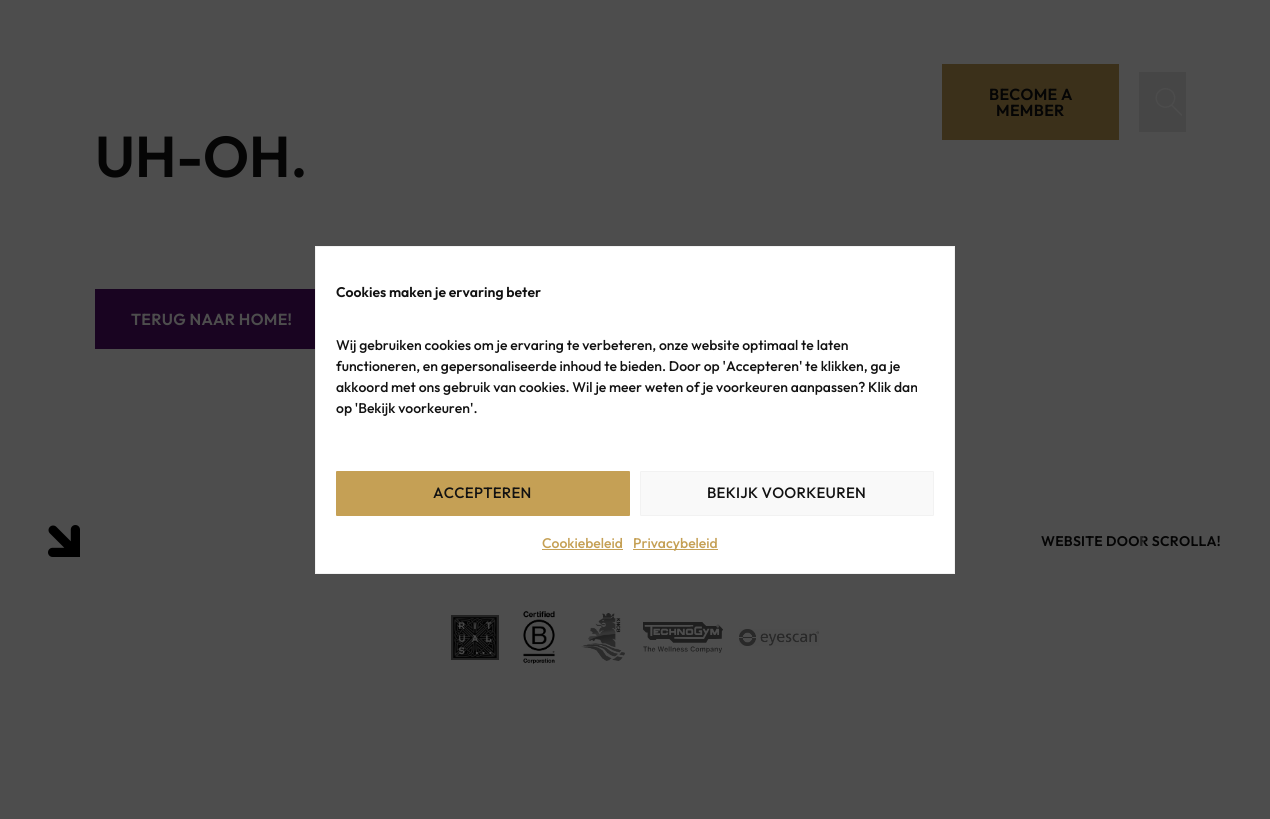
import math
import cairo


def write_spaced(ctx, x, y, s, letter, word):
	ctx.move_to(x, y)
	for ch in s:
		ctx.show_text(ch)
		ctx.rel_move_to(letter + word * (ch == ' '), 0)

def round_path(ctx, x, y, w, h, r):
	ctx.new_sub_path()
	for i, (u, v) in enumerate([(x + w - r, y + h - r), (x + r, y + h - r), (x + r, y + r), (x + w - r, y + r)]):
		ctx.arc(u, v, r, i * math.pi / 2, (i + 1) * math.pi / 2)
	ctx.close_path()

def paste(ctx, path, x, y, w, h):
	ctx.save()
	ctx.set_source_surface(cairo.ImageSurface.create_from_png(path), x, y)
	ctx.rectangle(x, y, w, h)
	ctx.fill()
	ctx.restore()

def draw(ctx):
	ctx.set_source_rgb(0.302, 0.302, 0.302)
	ctx.paint()
	ctx.set_source_rgb(0.231, 0.188, 0.102)
	ctx.rectangle(942, 64, 177, 76)
	ctx.fill()
	ctx.select_font_face('Outfit Thin')
	ctx.set_font_size(16)
	ctx.set_source_rgb(0.02, 0.02, 0.02)
	write_spaced(ctx, 989, 100, 'BECOME A', 0.3, 0)
	write_spaced(ctx, 996, 116, 'MEMBER', 0.3, 0)
	ctx.set_source_rgb(0.275, 0.275, 0.275)
	ctx.rectangle(1139, 72, 47, 60)
	ctx.fill()
	paste(ctx, 'media/1.png', 1155, 88, 27, 28)
	ctx.set_font_size(57.5)
	ctx.set_source_rgb(0.02, 0.02, 0.02)
	ctx.move_to(95, 177)
	ctx.show_text('UH-OH.')
	ctx.set_source_rgb(0.098, 0.016, 0.129)
	ctx.rectangle(95, 289, 220, 60)
	ctx.fill()
	ctx.set_font_size(16)
	ctx.set_source_rgb(0.302, 0.302, 0.302)
	write_spaced(ctx, 131, 325, 'TERUG NAAR HOME!', 0.3, 0)
	ctx.set_source_rgb(1, 1, 1)
	ctx.rectangle(315.5, 246.5, 639, 327)
	ctx.fill_preserve()
	ctx.set_source_rgb(0.949, 0.949, 0.949)
	ctx.set_line_width(1)
	ctx.stroke()
	ctx.set_font_size(14)
	ctx.set_source_rgb(0.071, 0.071, 0.071)
	ctx.move_to(336, 297)
	ctx.show_text('Cookies maken je ervaring beter')
	ctx.select_font_face('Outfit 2 Thin')
	for x, y, s in [
		(336, 350, 'Wij gebruiken cookies om je ervaring te verbeteren, onze website optimaal te laten'),
		(336, 371, 'functioneren, en gepersonaliseerde inhoud te bieden. Door op \'Accepteren\' te klikken, ga je'),
		(336, 392, 'akkoord met ons gebruik van cookies. Wil je meer weten of je voorkeuren aanpassen? Klik dan'),
		(336, 413, 'op \'Bekijk voorkeuren\'.'),
	]:
		ctx.move_to(x, y)
		ctx.show_text(s)
	ctx.set_source_rgb(0.773, 0.627, 0.333)
	round_path(ctx, 336.5, 471.5, 293, 44, 0.5)
	ctx.fill_preserve()
	ctx.stroke()
	ctx.set_font_size(15)
	ctx.set_source_rgb(0.071, 0.071, 0.071)
	write_spaced(ctx, 433, 498, 'ACCEPTEREN', 0.25, 0)
	ctx.set_source_rgb(0.976, 0.976, 0.976)
	round_path(ctx, 640.5, 471.5, 293, 44, 0.5)
	ctx.fill_preserve()
	ctx.set_source_rgb(0.949, 0.949, 0.949)
	ctx.stroke()
	ctx.set_source_rgb(0.071, 0.071, 0.071)
	write_spaced(ctx, 707, 498, 'BEKIJK VOORKEUREN', 0.25, 0)
	ctx.set_font_size(14)
	ctx.set_source_rgb(0.773, 0.627, 0.333)
	ctx.move_to(542, 548)
	ctx.show_text('Cookiebeleid')
	ctx.rectangle(542, 549, 81, 1)
	ctx.fill()
	ctx.rectangle(633, 549, 85, 1)
	ctx.fill()
	ctx.move_to(633, 548)
	ctx.show_text('Privacybeleid')
	paste(ctx, 'media/2.png', 48, 525, 32, 32)
	ctx.select_font_face('Outfit Thin')
	ctx.set_source_rgb(0.02, 0.02, 0.02)
	write_spaced(ctx, 1041, 546, 'WEBSITE DOOR SCROLLA!', 0.25, 0)
	ctx.set_source_rgba(0.302, 0.302, 0.302, 0.4)
	ctx.rectangle(1141, 536, 3, 10)
	ctx.fill()
	paste(ctx, 'media/3.png', 451, 615, 48, 45)
	paste(ctx, 'media/4.png', 523, 610, 32, 54)
	paste(ctx, 'media/5.png', 581, 613, 44, 48)
	paste(ctx, 'media/6.png', 643, 622, 80, 31)
	paste(ctx, 'media/7.png', 739, 629, 80, 17)


surface = cairo.ImageSurface(cairo.FORMAT_RGB24, 1270, 819)
ctx = cairo.Context(surface)
options = cairo.FontOptions()
options.set_hint_metrics(cairo.HINT_METRICS_OFF)
options.set_hint_style(cairo.HINT_STYLE_NONE)
ctx.set_font_options(options)
ctx.set_miter_limit(4)
draw(ctx)
surface.write_to_png('image.png')
